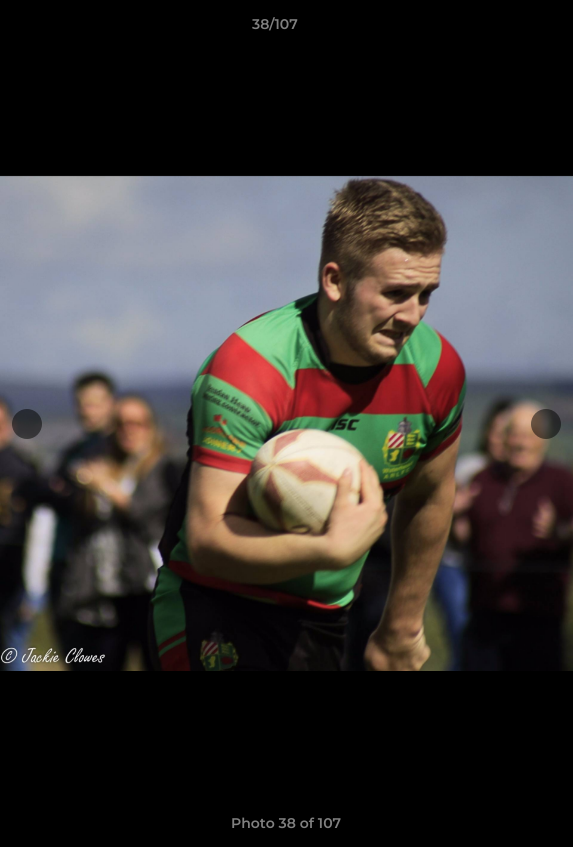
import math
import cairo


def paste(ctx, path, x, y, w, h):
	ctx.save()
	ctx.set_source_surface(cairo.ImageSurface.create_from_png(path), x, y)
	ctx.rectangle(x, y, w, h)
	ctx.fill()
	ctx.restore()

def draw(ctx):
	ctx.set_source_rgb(0, 0, 0)
	ctx.paint()
	ctx.select_font_face('Montserrat SemiBold')
	ctx.set_font_size(14)
	ctx.set_source_rgb(0.502, 0.502, 0.502)
	ctx.move_to(252, 29)
	ctx.show_text('38/107')
	paste(ctx, 'media/1.png', 0, 175, 573, 496)
	ctx.set_source_rgba(0, 0, 0, 0.5)
	ctx.arc(27, 424, 15, 0, 2 * math.pi)
	ctx.fill()
	ctx.arc(546, 424, 15, 0, 2 * math.pi)
	ctx.fill()
	ctx.set_source_rgb(0.502, 0.502, 0.502)
	ctx.move_to(231, 828)
	ctx.show_text('Photo 38 of 107')


surface = cairo.ImageSurface(cairo.FORMAT_RGB24, 573, 847)
ctx = cairo.Context(surface)
options = cairo.FontOptions()
options.set_hint_metrics(cairo.HINT_METRICS_OFF)
options.set_hint_style(cairo.HINT_STYLE_NONE)
ctx.set_font_options(options)
ctx.set_miter_limit(4)
draw(ctx)
surface.write_to_png('image.png')
